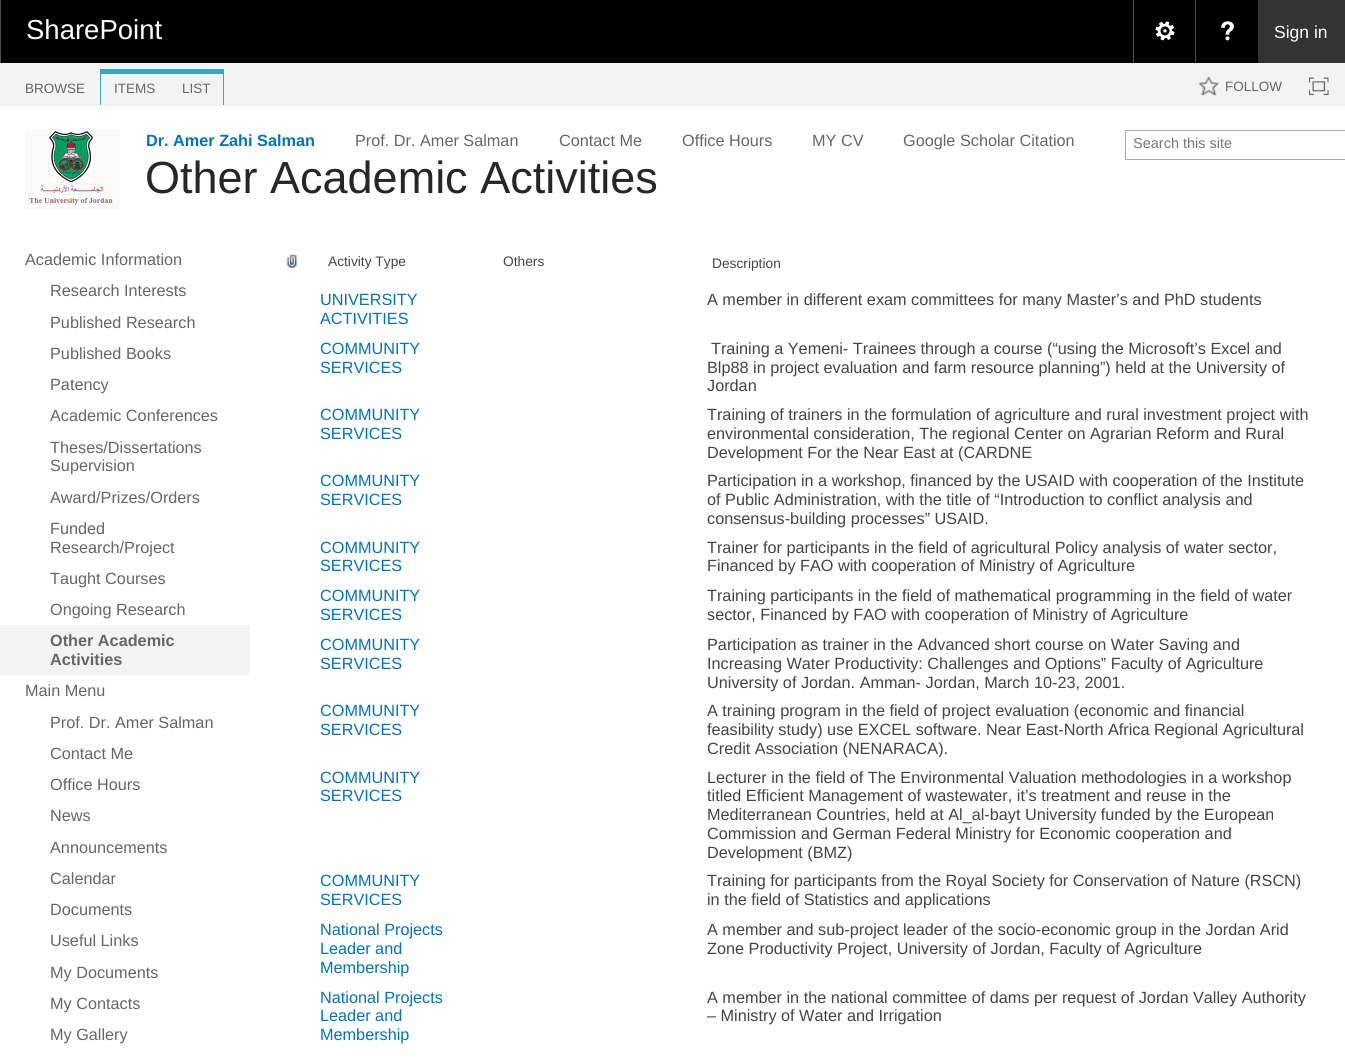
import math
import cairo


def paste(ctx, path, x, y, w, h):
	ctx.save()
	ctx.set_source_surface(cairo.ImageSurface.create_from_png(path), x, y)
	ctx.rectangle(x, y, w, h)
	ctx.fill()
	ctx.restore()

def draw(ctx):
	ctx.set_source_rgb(1, 1, 1)
	ctx.paint()
	ctx.set_source_rgb(0, 0, 0)
	ctx.rectangle(1, 0, 1257, 63)
	ctx.fill()
	ctx.set_source_rgb(0.302, 0.302, 0.302)
	ctx.rectangle(0, 0, 1, 63)
	ctx.fill()
	ctx.select_font_face('Liberation Sans')
	ctx.set_font_size(27.5)
	ctx.set_source_rgb(1, 1, 1)
	ctx.move_to(26, 39)
	ctx.show_text('SharePoint')
	ctx.set_source_rgb(0.302, 0.302, 0.302)
	ctx.rectangle(1133, 0, 1, 63)
	ctx.fill()
	paste(ctx, 'media/1.png', 1155, 21, 20, 20)
	ctx.rectangle(1195, 0, 1, 63)
	ctx.fill()
	paste(ctx, 'media/2.png', 1221, 21, 13, 20)
	ctx.set_source_rgb(0.2, 0.2, 0.2)
	ctx.rectangle(1258, 0, 87, 63)
	ctx.fill()
	ctx.set_font_size(17.5)
	ctx.set_source_rgb(1, 1, 1)
	ctx.move_to(1274, 38)
	ctx.show_text('Sign in')
	ctx.set_source_rgb(0.953, 0.953, 0.953)
	ctx.rectangle(0, 63, 1345, 42)
	ctx.fill()
	ctx.set_source_rgb(0.941, 0.941, 0.941)
	ctx.rectangle(0, 105, 1345, 1)
	ctx.fill()
	ctx.set_font_size(13.5)
	ctx.set_source_rgb(0.4, 0.4, 0.4)
	ctx.move_to(25, 93)
	ctx.show_text('BROWSE')
	ctx.set_source_rgb(0.212, 0.655, 0.792)
	ctx.rectangle(100, 69, 124, 5)
	ctx.fill()
	ctx.rectangle(100, 74, 1, 31)
	ctx.fill()
	ctx.set_source_rgb(0.4, 0.4, 0.4)
	ctx.move_to(114, 93)
	ctx.show_text('ITEMS')
	ctx.set_source_rgb(0.212, 0.655, 0.792)
	ctx.rectangle(223, 74, 1, 31)
	ctx.fill()
	ctx.set_source_rgb(0.4, 0.4, 0.4)
	ctx.move_to(182, 93)
	ctx.show_text('LIST')
	paste(ctx, 'media/3.png', 1199, 76, 20, 20)
	ctx.move_to(1225, 91)
	ctx.show_text('FOLLOW')
	paste(ctx, 'media/4.png', 1308, 77, 21, 19)
	paste(ctx, 'media/5.png', 25, 130, 95, 80)
	ctx.select_font_face('Liberation Sans', cairo.FONT_SLANT_NORMAL, cairo.FONT_WEIGHT_BOLD)
	ctx.set_font_size(16.25)
	ctx.set_source_rgb(0, 0.447, 0.776)
	ctx.move_to(146, 146)
	ctx.show_text('Dr. Amer Zahi Salman')
	ctx.select_font_face('Liberation Sans')
	ctx.set_source_rgb(0.4, 0.4, 0.4)
	for x, y, s in [
		(355, 146, 'Prof. Dr. Amer Salman'),
		(559, 146, 'Contact Me'),
		(682, 146, 'Office Hours'),
		(812, 146, 'MY CV'),
		(903, 146, 'Google Scholar Citation'),
	]:
		ctx.move_to(x, y)
		ctx.show_text(s)
	ctx.set_font_size(45)
	ctx.set_source_rgb(0.149, 0.149, 0.149)
	ctx.move_to(145, 193)
	ctx.show_text('Other Academic Activities')
	ctx.rectangle(1125.5, 130.5, 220, 29)
	ctx.set_source_rgb(0.671, 0.671, 0.671)
	ctx.set_line_width(1)
	ctx.stroke()
	ctx.set_font_size(14.5)
	ctx.set_source_rgb(0.467, 0.467, 0.467)
	ctx.move_to(1133, 148)
	ctx.show_text('Search this site')
	ctx.set_font_size(16.25)
	ctx.set_source_rgb(0.4, 0.4, 0.4)
	for x, y, s in [
		(25, 265, 'Academic Information'),
		(50, 296, 'Research Interests'),
		(50, 328, 'Published Research'),
		(50, 359, 'Published Books'),
		(50, 390, 'Patency'),
		(50, 421, 'Academic Conferences'),
		(50, 453, 'Theses/Dissertations'),
		(50, 471, 'Supervision'),
		(50, 503, 'Award/Prizes/Orders'),
		(50, 534, 'Funded'),
		(50, 553, 'Research/Project'),
		(50, 584, 'Taught Courses'),
		(50, 615, 'Ongoing Research'),
	]:
		ctx.move_to(x, y)
		ctx.show_text(s)
	ctx.set_source_rgb(0.953, 0.953, 0.953)
	ctx.rectangle(0, 625, 250, 50)
	ctx.fill()
	ctx.select_font_face('Liberation Sans', cairo.FONT_SLANT_NORMAL, cairo.FONT_WEIGHT_BOLD)
	ctx.set_source_rgb(0.4, 0.4, 0.4)
	ctx.move_to(50, 646)
	ctx.show_text('Other Academic')
	ctx.move_to(50, 665)
	ctx.show_text('Activities')
	ctx.select_font_face('Liberation Sans')
	for x, y, s in [
		(25, 696, 'Main Menu'),
		(50, 728, 'Prof. Dr. Amer Salman'),
		(50, 759, 'Contact Me'),
		(50, 790, 'Office Hours'),
		(50, 821, 'News'),
		(50, 853, 'Announcements'),
		(50, 884, 'Calendar'),
		(50, 915, 'Documents'),
		(50, 946, 'Useful Links'),
		(50, 978, 'My Documents'),
		(50, 1009, 'My Contacts'),
		(50, 1040, 'My Gallery'),
	]:
		ctx.move_to(x, y)
		ctx.show_text(s)
	paste(ctx, 'media/6.png', 286, 253, 12, 16)
	ctx.set_font_size(13.75)
	ctx.set_source_rgb(0.267, 0.267, 0.267)
	for x, y, s in [
		(328, 266, 'Activity Type'),
		(503, 266, 'Others'),
		(712, 268, 'Description'),
	]:
		ctx.move_to(x, y)
		ctx.show_text(s)
	ctx.set_font_size(16.25)
	ctx.set_source_rgb(0, 0.447, 0.776)
	ctx.move_to(320, 305)
	ctx.show_text('UNIVERSITY')
	ctx.move_to(320, 324)
	ctx.show_text('ACTIVITIES')
	ctx.set_source_rgb(0.267, 0.267, 0.267)
	ctx.move_to(707, 305)
	ctx.show_text('A member in different exam committees for many Master’s and PhD students')
	ctx.set_source_rgb(0, 0.447, 0.776)
	ctx.move_to(320, 354)
	ctx.show_text('COMMUNITY')
	ctx.move_to(320, 373)
	ctx.show_text('SERVICES')
	ctx.set_source_rgb(0.267, 0.267, 0.267)
	for x, y, s in [
		(711, 354, 'Training a Yemeni- Trainees through a course (“using the Microsoft’s Excel and'),
		(707, 373, 'Blp88 in project evaluation and farm resource planning”) held at the University of'),
		(707, 391, 'Jordan'),
	]:
		ctx.move_to(x, y)
		ctx.show_text(s)
	ctx.set_source_rgb(0, 0.447, 0.776)
	ctx.move_to(320, 420)
	ctx.show_text('COMMUNITY')
	ctx.move_to(320, 439)
	ctx.show_text('SERVICES')
	ctx.set_source_rgb(0.267, 0.267, 0.267)
	for x, y, s in [
		(707, 420, 'Training of trainers in the formulation of agriculture and rural investment project with'),
		(707, 439, 'environmental consideration, The regional Center on Agrarian Reform and Rural'),
		(707, 458, 'Development For the Near East at (CARDNE'),
	]:
		ctx.move_to(x, y)
		ctx.show_text(s)
	ctx.set_source_rgb(0, 0.447, 0.776)
	ctx.move_to(320, 486)
	ctx.show_text('COMMUNITY')
	ctx.move_to(320, 505)
	ctx.show_text('SERVICES')
	ctx.set_source_rgb(0.267, 0.267, 0.267)
	for x, y, s in [
		(707, 486, 'Participation in a workshop, financed by the USAID with cooperation of the Institute'),
		(707, 505, 'of Public Administration, with the title of “Introduction to conflict analysis and'),
		(707, 524, 'consensus-building processes” USAID.'),
	]:
		ctx.move_to(x, y)
		ctx.show_text(s)
	ctx.set_source_rgb(0, 0.447, 0.776)
	ctx.move_to(320, 553)
	ctx.show_text('COMMUNITY')
	ctx.move_to(320, 571)
	ctx.show_text('SERVICES')
	ctx.set_source_rgb(0.267, 0.267, 0.267)
	ctx.move_to(707, 553)
	ctx.show_text('Trainer for participants in the field of agricultural Policy analysis of water sector,')
	ctx.move_to(707, 571)
	ctx.show_text('Financed by FAO with cooperation of Ministry of Agriculture')
	ctx.set_source_rgb(0, 0.447, 0.776)
	ctx.move_to(320, 601)
	ctx.show_text('COMMUNITY')
	ctx.move_to(320, 620)
	ctx.show_text('SERVICES')
	ctx.set_source_rgb(0.267, 0.267, 0.267)
	ctx.move_to(707, 601)
	ctx.show_text('Training participants in the field of mathematical programming in the field of water')
	ctx.move_to(707, 620)
	ctx.show_text('sector, Financed by FAO with cooperation of Ministry of Agriculture')
	ctx.set_source_rgb(0, 0.447, 0.776)
	ctx.move_to(320, 650)
	ctx.show_text('COMMUNITY')
	ctx.move_to(320, 669)
	ctx.show_text('SERVICES')
	ctx.set_source_rgb(0.267, 0.267, 0.267)
	for x, y, s in [
		(707, 650, 'Participation as trainer in the Advanced short course on Water Saving and'),
		(707, 669, 'Increasing Water Productivity: Challenges and Options” Faculty of Agriculture'),
		(707, 688, 'University of Jordan. Amman- Jordan, March 10-23, 2001.'),
	]:
		ctx.move_to(x, y)
		ctx.show_text(s)
	ctx.set_source_rgb(0, 0.447, 0.776)
	ctx.move_to(320, 716)
	ctx.show_text('COMMUNITY')
	ctx.move_to(320, 735)
	ctx.show_text('SERVICES')
	ctx.set_source_rgb(0.267, 0.267, 0.267)
	for x, y, s in [
		(707, 716, 'A training program in the field of project evaluation (economic and financial'),
		(707, 735, 'feasibility study) use EXCEL software. Near East-North Africa Regional Agricultural'),
		(707, 754, 'Credit Association (NENARACA).'),
	]:
		ctx.move_to(x, y)
		ctx.show_text(s)
	ctx.set_source_rgb(0, 0.447, 0.776)
	ctx.move_to(320, 783)
	ctx.show_text('COMMUNITY')
	ctx.move_to(320, 801)
	ctx.show_text('SERVICES')
	ctx.set_source_rgb(0.267, 0.267, 0.267)
	for x, y, s in [
		(707, 783, 'Lecturer in the field of The Environmental Valuation methodologies in a workshop'),
		(707, 801, 'titled Efficient Management of wastewater, it’s treatment and reuse in the'),
		(707, 820, 'Mediterranean Countries, held at Al_al-bayt University funded by the European'),
		(707, 839, 'Commission and German Federal Ministry for Economic cooperation and'),
		(707, 858, 'Development (BMZ)'),
	]:
		ctx.move_to(x, y)
		ctx.show_text(s)
	ctx.set_source_rgb(0, 0.447, 0.776)
	ctx.move_to(320, 886)
	ctx.show_text('COMMUNITY')
	ctx.move_to(320, 905)
	ctx.show_text('SERVICES')
	ctx.set_source_rgb(0.267, 0.267, 0.267)
	ctx.move_to(707, 886)
	ctx.show_text('Training for participants from the Royal Society for Conservation of Nature (RSCN)')
	ctx.move_to(707, 905)
	ctx.show_text('in the field of Statistics and applications')
	ctx.set_source_rgb(0, 0.447, 0.776)
	for x, y, s in [
		(320, 935, 'National Projects'),
		(320, 954, 'Leader and'),
		(320, 973, 'Membership'),
	]:
		ctx.move_to(x, y)
		ctx.show_text(s)
	ctx.set_source_rgb(0.267, 0.267, 0.267)
	ctx.move_to(707, 935)
	ctx.show_text('A member and sub-project leader of the socio-economic group in the Jordan Arid')
	ctx.move_to(707, 954)
	ctx.show_text('Zone Productivity Project, University of Jordan, Faculty of Agriculture')
	ctx.set_source_rgb(0, 0.447, 0.776)
	for x, y, s in [
		(320, 1003, 'National Projects'),
		(320, 1021, 'Leader and'),
		(320, 1040, 'Membership'),
	]:
		ctx.move_to(x, y)
		ctx.show_text(s)
	ctx.set_source_rgb(0.267, 0.267, 0.267)
	ctx.move_to(707, 1003)
	ctx.show_text('A member in the national committee of dams per request of Jordan Valley Authority')
	ctx.move_to(707, 1021)
	ctx.show_text('– Ministry of Water and Irrigation')


surface = cairo.ImageSurface(cairo.FORMAT_RGB24, 1345, 1062)
ctx = cairo.Context(surface)
options = cairo.FontOptions()
options.set_hint_metrics(cairo.HINT_METRICS_OFF)
options.set_hint_style(cairo.HINT_STYLE_NONE)
ctx.set_font_options(options)
ctx.set_miter_limit(4)
draw(ctx)
surface.write_to_png('image.png')
